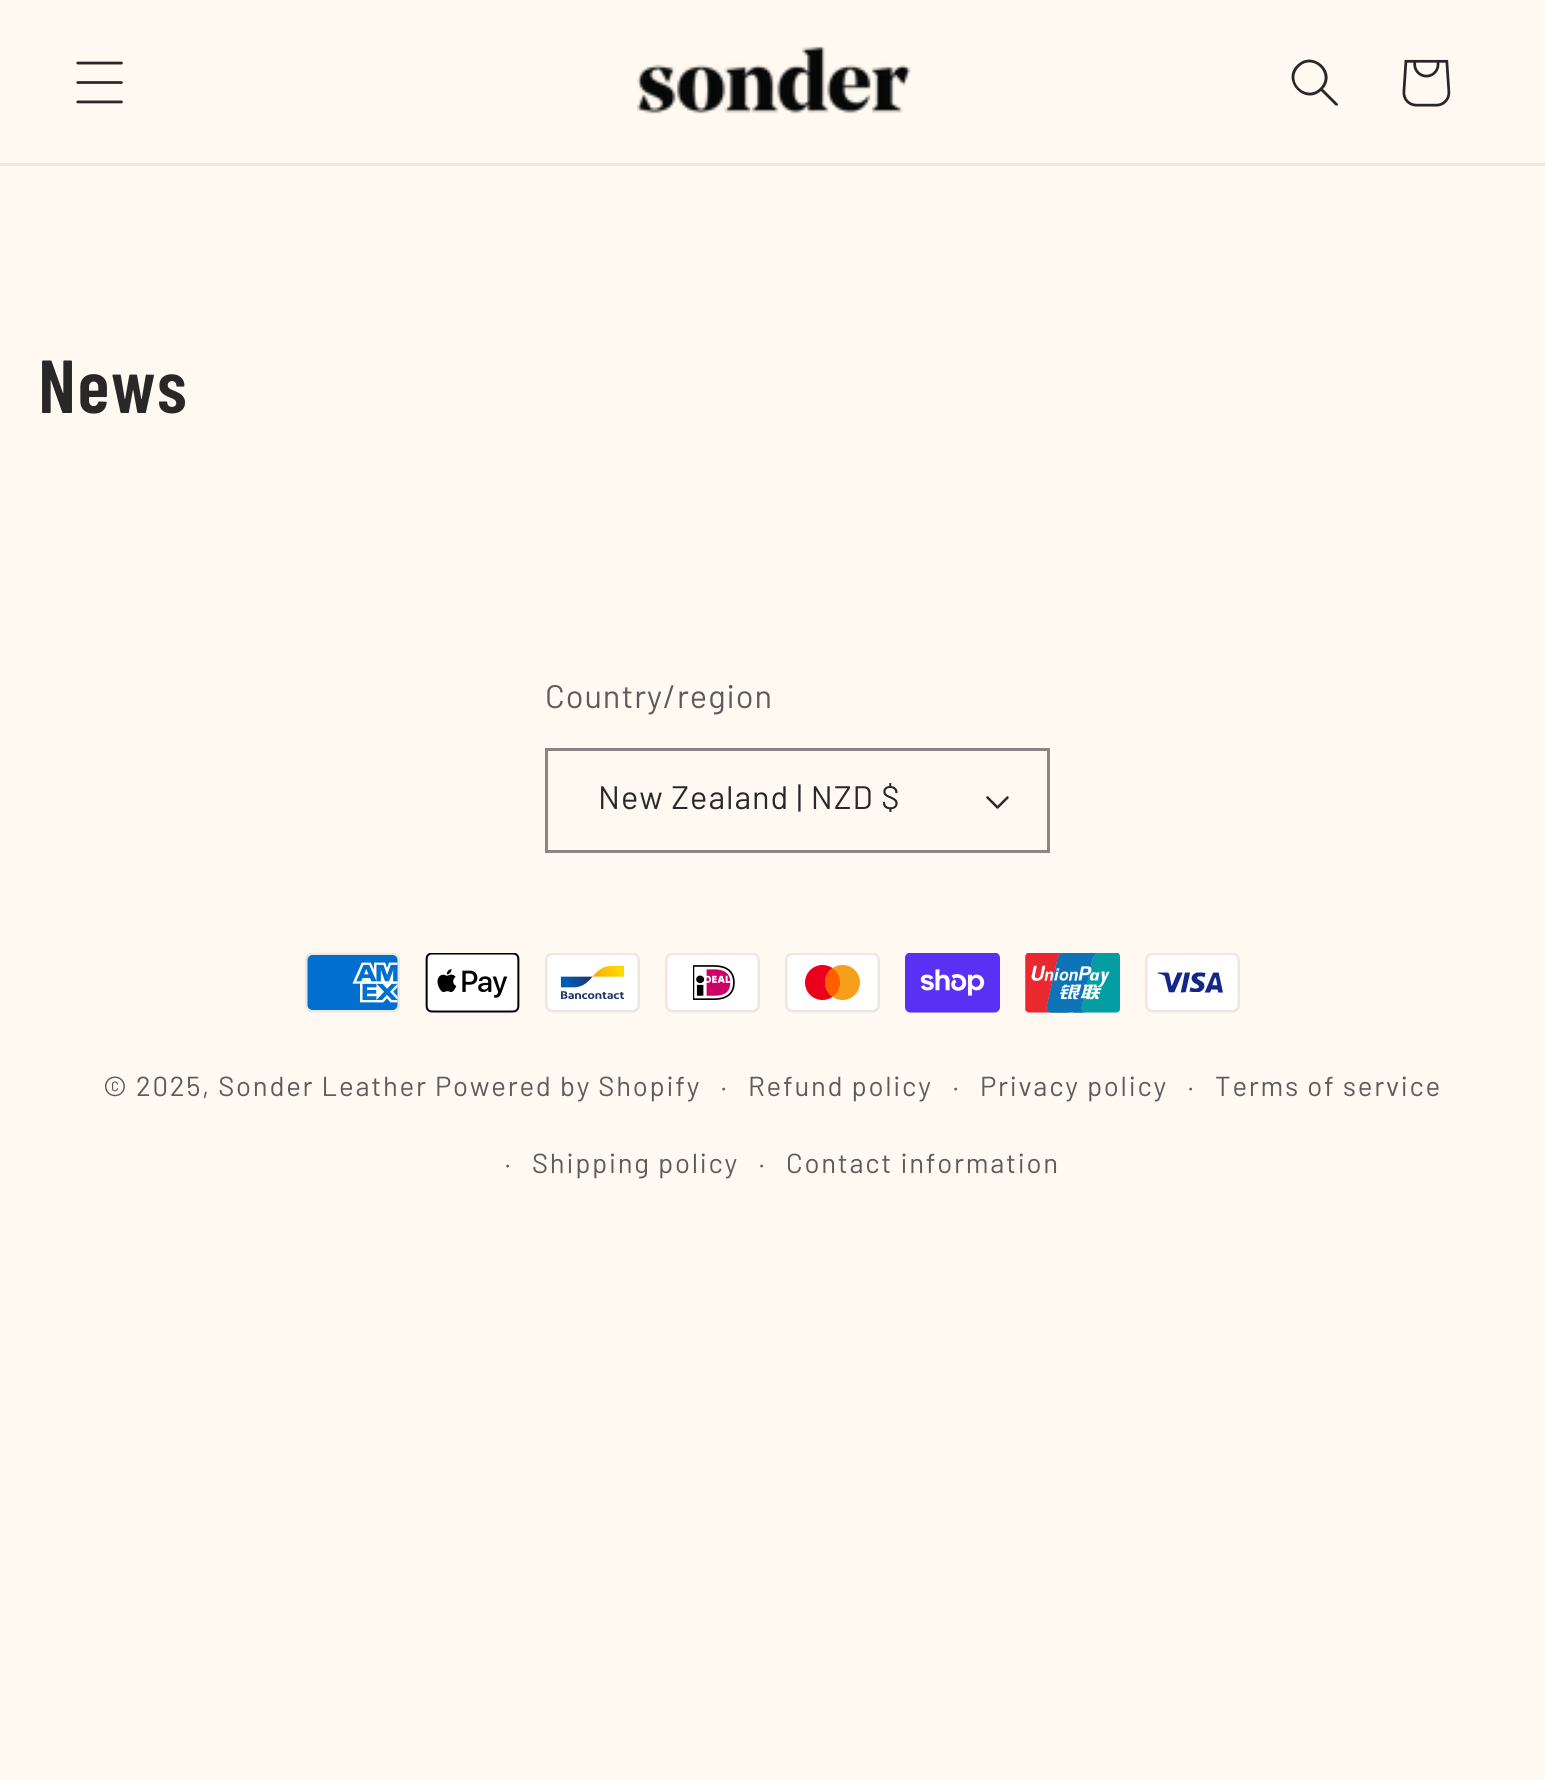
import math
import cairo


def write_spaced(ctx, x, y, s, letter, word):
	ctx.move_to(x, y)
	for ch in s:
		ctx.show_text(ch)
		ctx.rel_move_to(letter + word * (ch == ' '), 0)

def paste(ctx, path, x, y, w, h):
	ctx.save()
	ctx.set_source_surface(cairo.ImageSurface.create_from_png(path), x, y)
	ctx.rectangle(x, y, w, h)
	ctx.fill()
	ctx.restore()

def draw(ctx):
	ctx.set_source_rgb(1, 0.973, 0.949)
	ctx.paint()
	ctx.set_source_rgb(0.933, 0.906, 0.886)
	ctx.rectangle(0, 163, 1545, 3)
	ctx.fill()
	paste(ctx, 'media/1.png', 76, 61, 47, 43)
	paste(ctx, 'media/2.png', 637, 46, 274, 68)
	ctx.set_source_rgb(0.157, 0.157, 0.157)
	ctx.set_fill_rule(cairo.FILL_RULE_EVEN_ODD)
	ctx.new_path()
	ctx.move_to(1320, 88)
	ctx.curve_to(1306, 102, 1285, 81, 1299, 67)
	ctx.curve_to(1313, 53, 1334, 74, 1320, 88)
	ctx.move_to(1321, 91)
	ctx.curve_to(1304, 106, 1281, 80, 1297, 65)
	ctx.curve_to(1313, 49, 1338, 72, 1323, 89)
	ctx.line_to(1338, 104)
	ctx.curve_to(1338, 106, 1336, 106, 1335, 105)
	ctx.close_path()
	ctx.fill()
	paste(ctx, 'media/3.png', 1402, 59, 49, 48)
	ctx.select_font_face('Barlow Condensed SemiBold')
	ctx.set_font_size(75)
	write_spaced(ctx, 38, 413, 'News', 1.5, 0)
	ctx.select_font_face('Barlow')
	ctx.set_font_size(32.5)
	ctx.set_source_rgb(0.369, 0.361, 0.357)
	write_spaced(ctx, 545, 708, 'Country/region', 1, 0)
	paste(ctx, 'media/4.png', 986, 796, 23, 13)
	ctx.rectangle(546.5, 749.5, 502, 102)
	ctx.set_source_rgb(0.537, 0.525, 0.514)
	ctx.set_line_width(3)
	ctx.stroke()
	ctx.set_source_rgb(0.157, 0.157, 0.157)
	write_spaced(ctx, 598, 809, 'New Zealand | NZD $', 1, 0)
	paste(ctx, 'media/5.png', 305, 953, 95, 60)
	paste(ctx, 'media/6.png', 425, 953, 95, 60)
	paste(ctx, 'media/7.png', 545, 953, 95, 60)
	paste(ctx, 'media/8.png', 665, 953, 95, 60)
	paste(ctx, 'media/9.png', 785, 953, 95, 60)
	paste(ctx, 'media/10.png', 905, 953, 95, 60)
	paste(ctx, 'media/11.png', 1025, 953, 95, 60)
	paste(ctx, 'media/12.png', 1145, 953, 95, 60)
	ctx.set_font_size(27.5)
	ctx.set_source_rgb(0.369, 0.361, 0.357)
	write_spaced(ctx, 103, 1096, '© 2025, Sonder Leather Powered by Shopify', 1.75, 0)
	ctx.set_font_size(25)
	write_spaced(ctx, 721, 1096, '·', 1.75, 0)
	ctx.set_font_size(27.5)
	write_spaced(ctx, 748, 1096, 'Refund policy', 1.75, 0)
	ctx.set_font_size(25)
	write_spaced(ctx, 953, 1096, '·', 1.75, 0)
	ctx.set_font_size(27.5)
	write_spaced(ctx, 980, 1096, 'Privacy policy', 1.75, 0)
	ctx.set_font_size(25)
	write_spaced(ctx, 1188, 1096, '·', 1.75, 0)
	ctx.set_font_size(27.5)
	write_spaced(ctx, 1215, 1096, 'Terms of service', 1.75, 0)
	ctx.set_font_size(25)
	write_spaced(ctx, 505, 1173, '·', 1.75, 0)
	ctx.set_font_size(27.5)
	write_spaced(ctx, 532, 1173, 'Shipping policy', 1.75, 0)
	ctx.set_font_size(25)
	write_spaced(ctx, 759, 1173, '·', 1.75, 0)
	ctx.set_font_size(27.5)
	write_spaced(ctx, 786, 1173, 'Contact information', 1.75, 0)


surface = cairo.ImageSurface(cairo.FORMAT_RGB24, 1545, 1780)
ctx = cairo.Context(surface)
options = cairo.FontOptions()
options.set_hint_metrics(cairo.HINT_METRICS_OFF)
options.set_hint_style(cairo.HINT_STYLE_NONE)
ctx.set_font_options(options)
ctx.set_miter_limit(4)
draw(ctx)
surface.write_to_png('image.png')
